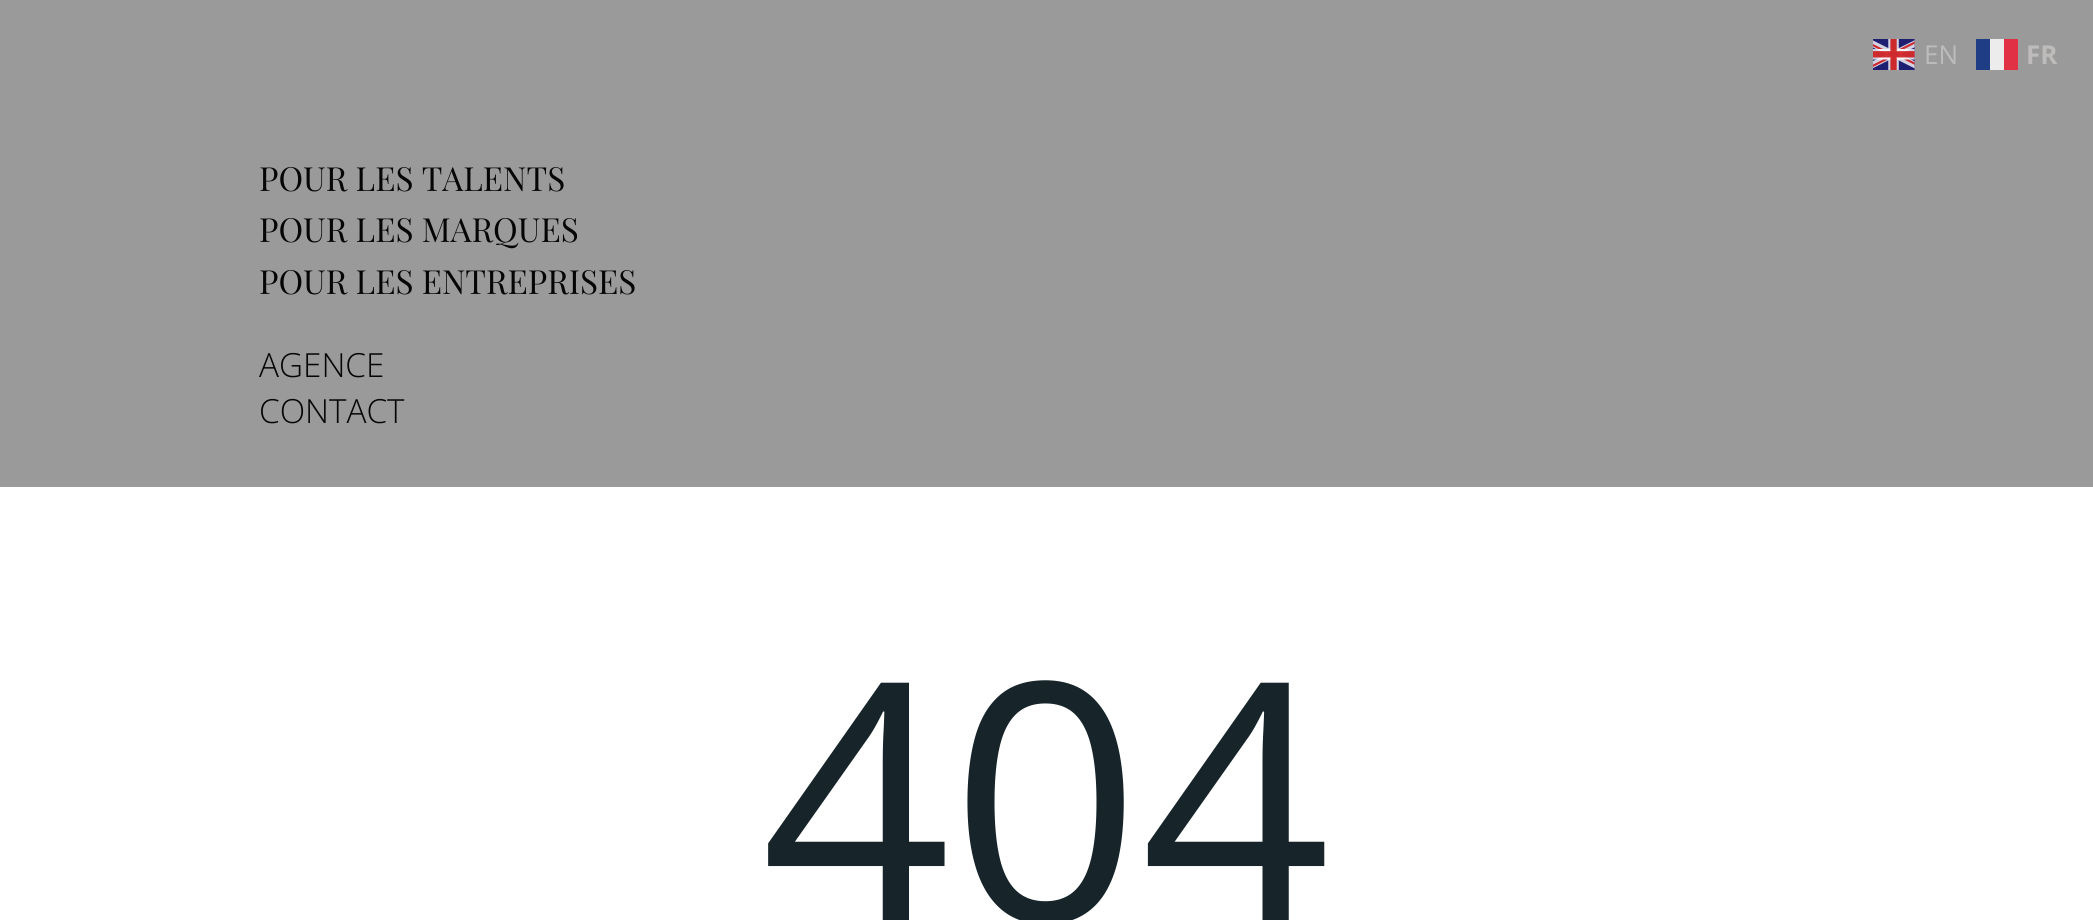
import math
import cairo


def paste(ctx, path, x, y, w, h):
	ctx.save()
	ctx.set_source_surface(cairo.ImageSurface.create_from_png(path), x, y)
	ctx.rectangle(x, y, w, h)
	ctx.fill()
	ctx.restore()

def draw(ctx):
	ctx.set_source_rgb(1, 1, 1)
	ctx.paint()
	ctx.set_source_rgb(0.604, 0.604, 0.604)
	ctx.rectangle(0, 0, 2093, 487)
	ctx.fill()
	paste(ctx, 'media/1.png', 1873, 39, 42, 31)
	ctx.select_font_face('Open Sans')
	ctx.set_font_size(26)
	ctx.set_source_rgb(0.745, 0.733, 0.733)
	ctx.move_to(1924, 64)
	ctx.show_text('EN')
	ctx.select_font_face('Open Sans', cairo.FONT_SLANT_NORMAL, cairo.FONT_WEIGHT_BOLD)
	ctx.move_to(2026, 64)
	ctx.show_text('FR')
	ctx.set_source_rgb(0.922, 0.922, 0.922)
	ctx.rectangle(1990, 39, 14, 31)
	ctx.fill()
	ctx.set_source_rgb(0.122, 0.239, 0.518)
	ctx.rectangle(1976, 39, 14, 31)
	ctx.fill()
	ctx.set_source_rgb(0.882, 0.196, 0.271)
	ctx.rectangle(2004, 39, 14, 31)
	ctx.fill()
	ctx.select_font_face('Playfair Display')
	ctx.set_font_size(33.25)
	ctx.set_source_rgb(0.02, 0.02, 0.02)
	for x, y, s in [
		(259, 191, 'POUR LES TALENTS'),
		(259, 242, 'POUR LES MARQUES'),
		(259, 294, 'POUR LES ENTREPRISES'),
	]:
		ctx.move_to(x, y)
		ctx.show_text(s)
	ctx.select_font_face('Open Sans Light')
	ctx.move_to(259, 377)
	ctx.show_text('AGENCE')
	ctx.move_to(259, 423)
	ctx.show_text('CONTACT')
	ctx.select_font_face('Open Sans')
	ctx.set_font_size(332)
	ctx.set_source_rgb(0.09, 0.145, 0.165)
	ctx.move_to(761, 921)
	ctx.show_text('404')


surface = cairo.ImageSurface(cairo.FORMAT_RGB24, 2093, 920)
ctx = cairo.Context(surface)
options = cairo.FontOptions()
options.set_hint_metrics(cairo.HINT_METRICS_OFF)
options.set_hint_style(cairo.HINT_STYLE_NONE)
ctx.set_font_options(options)
ctx.set_miter_limit(4)
draw(ctx)
surface.write_to_png('image.png')
